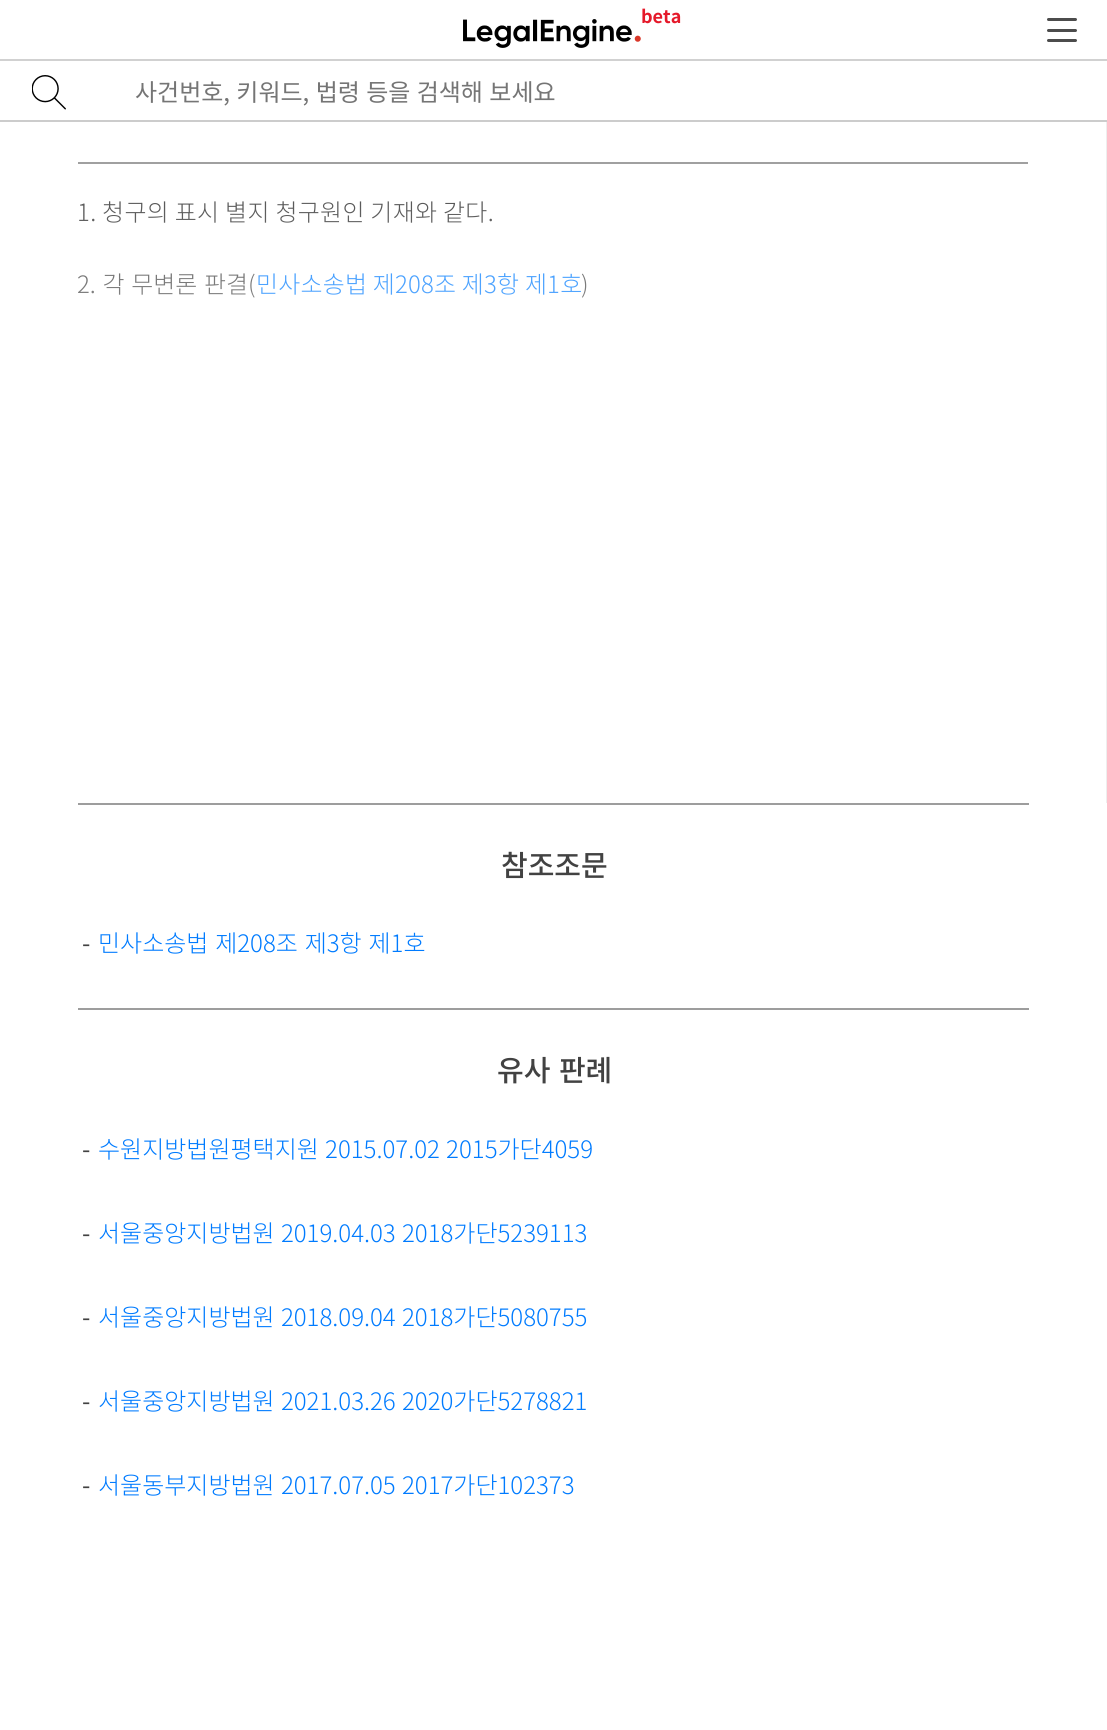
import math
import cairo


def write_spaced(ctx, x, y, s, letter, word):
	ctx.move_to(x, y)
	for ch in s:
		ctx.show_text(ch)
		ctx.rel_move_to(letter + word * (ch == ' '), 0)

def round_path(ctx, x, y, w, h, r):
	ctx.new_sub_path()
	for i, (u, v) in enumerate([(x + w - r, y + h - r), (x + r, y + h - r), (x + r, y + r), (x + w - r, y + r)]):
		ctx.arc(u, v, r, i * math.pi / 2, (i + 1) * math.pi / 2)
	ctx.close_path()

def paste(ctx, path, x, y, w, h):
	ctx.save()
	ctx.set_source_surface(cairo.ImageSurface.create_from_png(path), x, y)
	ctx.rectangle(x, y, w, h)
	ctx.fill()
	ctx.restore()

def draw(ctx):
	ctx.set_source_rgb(1, 1, 1)
	ctx.paint()
	ctx.set_source_rgb(0.82, 0.82, 0.82)
	ctx.rectangle(0, 59, 1107, 2)
	ctx.fill()
	ctx.select_font_face('Noto Sans KR', cairo.FONT_SLANT_NORMAL, cairo.FONT_WEIGHT_BOLD)
	ctx.set_font_size(18)
	ctx.set_source_rgb(0.898, 0.098, 0.165)
	ctx.move_to(641, 23)
	ctx.show_text('beta')
	paste(ctx, 'media/1.png', 463, 19, 178, 29)
	ctx.set_source_rgb(0.298, 0.298, 0.298)
	round_path(ctx, 1047, 18, 30, 3, 1.5)
	ctx.fill()
	round_path(ctx, 1047, 29, 30, 3, 1.5)
	ctx.fill()
	round_path(ctx, 1047, 39, 30, 3, 1.5)
	ctx.fill()
	ctx.set_source_rgb(0.8, 0.8, 0.8)
	ctx.rectangle(0, 120, 1107, 2)
	ctx.fill()
	paste(ctx, 'media/2.png', 32, 75, 34, 35)
	ctx.select_font_face('Noto Sans KR')
	ctx.set_font_size(24)
	ctx.set_source_rgb(0.459, 0.459, 0.459)
	write_spaced(ctx, 135, 101, '사건번호, 키워드, 법령 등을 검색해 보세요', 0, 1)
	ctx.set_source_rgb(0.933, 0.933, 0.933)
	ctx.rectangle(1106, 122, 1, 681)
	ctx.fill()
	ctx.set_source_rgb(0.616, 0.616, 0.616)
	ctx.rectangle(78, 162, 950, 2)
	ctx.fill()
	ctx.select_font_face('Noto Sans KR Light')
	ctx.set_font_size(23.9)
	ctx.set_source_rgb(0.259, 0.259, 0.259)
	write_spaced(ctx, 77, 221, '1. 청구의 표시 별지 청구원인 기재와 같다.', 0.35, 0)
	write_spaced(ctx, 77, 293, '2. 각 무변론 판결(', 0, 1.5)
	ctx.set_source_rgb(0, 0.482, 1)
	write_spaced(ctx, 256, 293, '민사소송법 제208조 제3항 제1호', 0.25, 0)
	ctx.set_source_rgb(0.259, 0.259, 0.259)
	ctx.move_to(581, 293)
	ctx.show_text(')')
	gradient = cairo.LinearGradient(553, 148, 553, 599)
	gradient.add_color_stop_rgba(0, 1, 1, 1, 0)
	gradient.add_color_stop_rgba(1, 1, 1, 1, 1)
	ctx.set_source(gradient)
	ctx.rectangle(78, 162, 950, 136)
	ctx.fill()
	ctx.set_source_rgb(0.616, 0.616, 0.616)
	ctx.rectangle(78, 803, 951, 2)
	ctx.fill()
	ctx.select_font_face('Noto Sans KR Medium')
	ctx.set_font_size(29)
	ctx.set_source_rgb(0.259, 0.259, 0.259)
	ctx.move_to(501, 876)
	ctx.show_text('참조조문')
	ctx.select_font_face('Noto Sans KR')
	ctx.set_font_size(24)
	ctx.move_to(82, 952)
	ctx.show_text('-')
	ctx.select_font_face('Noto Sans KR Light')
	ctx.set_source_rgb(0, 0.482, 1)
	write_spaced(ctx, 98, 952, '민사소송법 제208조 제3항 제1호', 0, 1.5)
	ctx.set_source_rgb(0.616, 0.616, 0.616)
	ctx.rectangle(78, 1008, 951, 2)
	ctx.fill()
	ctx.select_font_face('Noto Sans KR Medium')
	ctx.set_font_size(29)
	ctx.set_source_rgb(0.259, 0.259, 0.259)
	write_spaced(ctx, 497, 1081, '유사 판례', 0, 2)
	ctx.select_font_face('Noto Sans KR')
	ctx.set_font_size(24)
	ctx.move_to(82, 1158)
	ctx.show_text('-')
	ctx.select_font_face('Noto Sans KR Light')
	ctx.set_source_rgb(0, 0.482, 1)
	write_spaced(ctx, 98, 1158, '수원지방법원평택지원 2015.07.02 2015가단4059', 0, 1)
	ctx.select_font_face('Noto Sans KR')
	ctx.set_source_rgb(0.259, 0.259, 0.259)
	ctx.move_to(82, 1242)
	ctx.show_text('-')
	ctx.select_font_face('Noto Sans KR Light')
	ctx.set_source_rgb(0, 0.482, 1)
	write_spaced(ctx, 98, 1242, '서울중앙지방법원 2019.04.03 2018가단5239113', 0, 1)
	ctx.select_font_face('Noto Sans KR')
	ctx.set_source_rgb(0.259, 0.259, 0.259)
	ctx.move_to(82, 1326)
	ctx.show_text('-')
	ctx.select_font_face('Noto Sans KR Light')
	ctx.set_source_rgb(0, 0.482, 1)
	write_spaced(ctx, 98, 1326, '서울중앙지방법원 2018.09.04 2018가단5080755', 0, 1)
	ctx.select_font_face('Noto Sans KR')
	ctx.set_source_rgb(0.259, 0.259, 0.259)
	ctx.move_to(82, 1410)
	ctx.show_text('-')
	ctx.select_font_face('Noto Sans KR Light')
	ctx.set_source_rgb(0, 0.482, 1)
	write_spaced(ctx, 98, 1410, '서울중앙지방법원 2021.03.26 2020가단5278821', 0, 1)
	ctx.select_font_face('Noto Sans KR')
	ctx.set_source_rgb(0.259, 0.259, 0.259)
	ctx.move_to(82, 1494)
	ctx.show_text('-')
	ctx.select_font_face('Noto Sans KR Light')
	ctx.set_source_rgb(0, 0.482, 1)
	write_spaced(ctx, 98, 1494, '서울동부지방법원 2017.07.05 2017가단102373', 0, 1)


surface = cairo.ImageSurface(cairo.FORMAT_RGB24, 1107, 1730)
ctx = cairo.Context(surface)
options = cairo.FontOptions()
options.set_hint_metrics(cairo.HINT_METRICS_OFF)
options.set_hint_style(cairo.HINT_STYLE_NONE)
ctx.set_font_options(options)
ctx.set_miter_limit(4)
draw(ctx)
surface.write_to_png('image.png')
